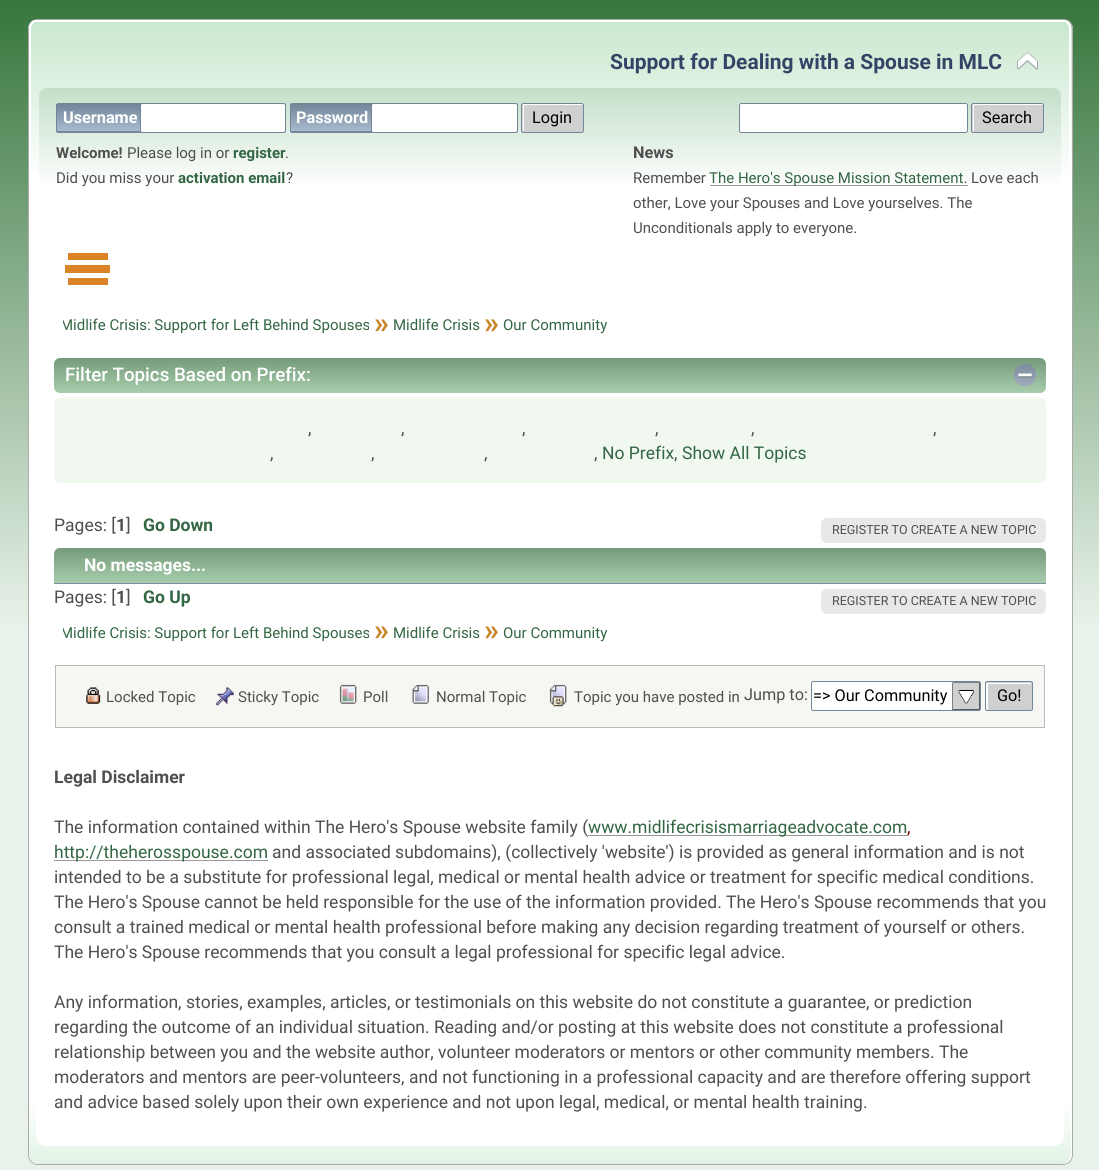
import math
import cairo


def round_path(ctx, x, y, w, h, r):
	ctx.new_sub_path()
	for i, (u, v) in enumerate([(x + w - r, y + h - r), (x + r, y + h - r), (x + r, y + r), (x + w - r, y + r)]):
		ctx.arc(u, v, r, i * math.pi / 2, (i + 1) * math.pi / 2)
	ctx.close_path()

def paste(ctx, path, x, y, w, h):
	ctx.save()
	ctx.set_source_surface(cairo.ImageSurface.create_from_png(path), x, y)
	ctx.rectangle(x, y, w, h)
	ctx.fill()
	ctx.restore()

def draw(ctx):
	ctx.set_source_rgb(1, 1, 1)
	ctx.paint()
	gradient = cairo.LinearGradient(550, 0, 550, 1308)
	gradient.add_color_stop_rgba(0, 0.216, 0.463, 0.239, 1)
	gradient.add_color_stop_rgba(0.48, 0.914, 0.949, 0.918, 1)
	ctx.set_source(gradient)
	ctx.rectangle(0, 0, 1099, 1170)
	ctx.fill()
	ctx.save()
	round_path(ctx, 28, 19, 1045, 1146, 10)
	ctx.clip()
	gradient = cairo.LinearGradient(550, 20, 550, 1164)
	gradient.add_color_stop_rgba(0, 0.788, 0.906, 0.808, 1)
	gradient.add_color_stop_rgba(0.14, 1, 1, 1, 1)
	ctx.set_source(gradient)
	ctx.rectangle(28, 20, 1045, 1144)
	ctx.fill()
	ctx.restore()
	ctx.set_source_rgb(1, 1, 1)
	ctx.new_path()
	ctx.move_to(1060, 1164)
	ctx.line_to(1062, 1164)
	ctx.curve_to(1067, 1164, 1071, 1160, 1071, 1155)
	ctx.line_to(1071, 29)
	ctx.curve_to(1071, 24, 1067, 20, 1062, 20)
	ctx.line_to(1060, 20)
	ctx.curve_to(1065, 20, 1069, 24, 1069, 29)
	ctx.line_to(1069, 1155)
	ctx.curve_to(1069, 1160, 1065, 1164, 1060, 1164)
	ctx.close_path()
	ctx.fill()
	ctx.new_path()
	ctx.move_to(38, 20)
	ctx.curve_to(33, 20, 29, 24, 29, 29)
	ctx.line_to(29, 1155)
	ctx.curve_to(29, 1161, 34, 1164, 40, 1164)
	ctx.curve_to(35, 1164, 31, 1160, 31, 1155)
	ctx.line_to(31, 29)
	ctx.curve_to(31, 24, 35, 20, 40, 20)
	ctx.close_path()
	ctx.fill()
	round_path(ctx, 28.5, 19.5, 1044, 1145, 9.5)
	ctx.set_source_rgb(0.667, 0.667, 0.667)
	ctx.set_line_width(1)
	ctx.stroke()
	gradient = cairo.LinearGradient(550, 87, 550, 188)
	gradient.add_color_stop_rgba(0, 0.765, 0.871, 0.784, 1)
	gradient.add_color_stop_rgba(1, 1, 1, 1, 1)
	ctx.set_source(gradient)
	ctx.new_path()
	ctx.move_to(47, 88)
	ctx.line_to(1053, 88)
	ctx.curve_to(1057.5, 88, 1061, 91.5, 1061, 96)
	ctx.line_to(1061, 188)
	ctx.line_to(39, 188)
	ctx.line_to(39, 96)
	ctx.curve_to(39, 91.5, 42.5, 88, 47, 88)
	ctx.close_path()
	ctx.fill()
	ctx.set_source_rgb(1, 1, 1)
	ctx.set_fill_rule(cairo.FILL_RULE_EVEN_ODD)
	ctx.new_path()
	ctx.move_to(36, 20)
	ctx.line_to(1064, 20)
	ctx.curve_to(1068, 20, 1071, 23, 1071, 28)
	ctx.line_to(1071, 251)
	ctx.line_to(29, 251)
	ctx.line_to(29, 28)
	ctx.curve_to(29, 23, 32, 20, 36, 20)
	ctx.close_path()
	ctx.move_to(36, 22)
	ctx.line_to(1064, 22)
	ctx.curve_to(1067, 22, 1069, 25, 1069, 28)
	ctx.line_to(1069, 251)
	ctx.line_to(31, 251)
	ctx.line_to(31, 28)
	ctx.curve_to(31, 25, 33, 22, 36, 22)
	ctx.close_path()
	ctx.fill()
	ctx.select_font_face('Roboto', cairo.FONT_SLANT_NORMAL, cairo.FONT_WEIGHT_BOLD)
	ctx.set_font_size(21)
	ctx.set_source_rgb(0.2, 0.267, 0.4)
	ctx.move_to(610, 69)
	ctx.show_text('Support for Dealing with a Spouse in MLC')
	paste(ctx, 'media/1.png', 1017, 51, 21, 19)
	gradient = cairo.LinearGradient(171, 104, 171, 131)
	gradient.add_color_stop_rgba(0, 0.451, 0.522, 0.6, 1)
	gradient.add_color_stop_rgba(1, 0.659, 0.729, 0.808, 1)
	ctx.set_source(gradient)
	ctx.rectangle(56, 104, 230, 27)
	ctx.fill()
	ctx.save()
	ctx.set_fill_rule(cairo.FILL_RULE_WINDING)
	round_path(ctx, 56, 103, 230, 30, 2.5)
	ctx.clip()
	gradient = cairo.LinearGradient(171, 131, 171, 159)
	gradient.add_color_stop_rgba(0, 0.451, 0.522, 0.6, 1)
	gradient.add_color_stop_rgba(1, 0.659, 0.729, 0.808, 1)
	ctx.set_source(gradient)
	ctx.rectangle(56, 131, 230, 2)
	ctx.fill()
	ctx.restore()
	round_path(ctx, 56.5, 103.5, 229, 29, 2)
	ctx.set_source_rgb(0.451, 0.522, 0.6)
	ctx.stroke()
	ctx.set_font_size(16.25)
	ctx.set_source_rgb(1, 1, 1)
	ctx.move_to(63, 123)
	ctx.show_text('Username')
	round_path(ctx, 140.5, 103.5, 145, 29, 2)
	ctx.fill_preserve()
	ctx.set_source_rgb(0.451, 0.522, 0.6)
	ctx.stroke()
	gradient = cairo.LinearGradient(404, 104, 404, 131)
	gradient.add_color_stop_rgba(0, 0.451, 0.522, 0.6, 1)
	gradient.add_color_stop_rgba(1, 0.659, 0.729, 0.808, 1)
	ctx.set_source(gradient)
	ctx.rectangle(290, 104, 228, 27)
	ctx.fill()
	ctx.save()
	ctx.set_fill_rule(cairo.FILL_RULE_WINDING)
	round_path(ctx, 290, 103, 228, 30, 2.5)
	ctx.clip()
	gradient = cairo.LinearGradient(404, 131, 404, 159)
	gradient.add_color_stop_rgba(0, 0.451, 0.522, 0.6, 1)
	gradient.add_color_stop_rgba(1, 0.659, 0.729, 0.808, 1)
	ctx.set_source(gradient)
	ctx.rectangle(290, 131, 228, 2)
	ctx.fill()
	ctx.restore()
	round_path(ctx, 290.5, 103.5, 227, 29, 2)
	ctx.set_source_rgb(0.451, 0.522, 0.6)
	ctx.stroke()
	ctx.set_source_rgb(1, 1, 1)
	ctx.move_to(296, 123)
	ctx.show_text('Password')
	round_path(ctx, 371.5, 103.5, 146, 29, 2)
	ctx.fill_preserve()
	ctx.set_source_rgb(0.451, 0.522, 0.6)
	ctx.stroke()
	ctx.set_source_rgb(0.816, 0.816, 0.816)
	round_path(ctx, 521, 103, 63, 30, 2.5)
	ctx.fill()
	ctx.set_source_rgb(1, 1, 1)
	ctx.set_fill_rule(cairo.FILL_RULE_WINDING)
	ctx.new_path()
	ctx.move_to(525, 105)
	ctx.line_to(583, 105)
	ctx.curve_to(583, 102, 574, 104, 572, 104)
	ctx.line_to(534, 104)
	ctx.curve_to(521, 104, 523, 101, 523, 113)
	ctx.curve_to(523, 116, 522, 131, 524, 131)
	ctx.curve_to(524, 113, 523, 105, 525, 105)
	ctx.close_path()
	ctx.fill()
	round_path(ctx, 521.5, 103.5, 62, 29, 2)
	ctx.set_source_rgb(0.451, 0.522, 0.6)
	ctx.stroke()
	ctx.select_font_face('Roboto')
	ctx.set_source_rgb(0, 0, 0)
	ctx.move_to(532, 123)
	ctx.show_text('Login')
	ctx.select_font_face('Roboto', cairo.FONT_SLANT_NORMAL, cairo.FONT_WEIGHT_BOLD)
	ctx.set_font_size(15)
	ctx.set_source_rgb(0.31, 0.31, 0.31)
	ctx.move_to(56, 158)
	ctx.show_text('Welcome!')
	ctx.select_font_face('Roboto')
	ctx.move_to(127, 158)
	ctx.show_text('Please log in or')
	ctx.select_font_face('Roboto', cairo.FONT_SLANT_NORMAL, cairo.FONT_WEIGHT_BOLD)
	ctx.set_source_rgb(0.2, 0.4, 0.259)
	ctx.move_to(233, 158)
	ctx.show_text('register')
	ctx.select_font_face('Roboto')
	ctx.set_source_rgb(0.31, 0.31, 0.31)
	ctx.move_to(285, 158)
	ctx.show_text('.')
	ctx.move_to(56, 183)
	ctx.show_text('Did you miss your')
	ctx.select_font_face('Roboto', cairo.FONT_SLANT_NORMAL, cairo.FONT_WEIGHT_BOLD)
	ctx.set_source_rgb(0.2, 0.4, 0.259)
	ctx.move_to(178, 183)
	ctx.show_text('activation email')
	ctx.select_font_face('Roboto')
	ctx.set_source_rgb(0.31, 0.31, 0.31)
	ctx.move_to(286, 183)
	ctx.show_text('?')
	ctx.set_source_rgb(1, 1, 1)
	round_path(ctx, 739.5, 103.5, 228, 29, 2)
	ctx.fill_preserve()
	ctx.set_source_rgb(0.451, 0.522, 0.6)
	ctx.stroke()
	ctx.set_source_rgb(0.816, 0.816, 0.816)
	round_path(ctx, 971, 103, 73, 30, 2.5)
	ctx.fill()
	ctx.set_source_rgb(1, 1, 1)
	ctx.new_path()
	ctx.move_to(975, 105)
	ctx.line_to(1043, 105)
	ctx.curve_to(1043, 104, 1043, 104, 1042, 104)
	ctx.line_to(974, 104)
	ctx.curve_to(973, 104, 973, 104, 973, 105)
	ctx.line_to(973, 130)
	ctx.curve_to(973, 131, 973, 131, 974, 131)
	ctx.curve_to(974, 113, 973, 105, 975, 105)
	ctx.close_path()
	ctx.fill()
	round_path(ctx, 971.5, 103.5, 72, 29, 2)
	ctx.set_source_rgb(0.451, 0.522, 0.6)
	ctx.stroke()
	ctx.set_font_size(16.25)
	ctx.set_source_rgb(0, 0, 0)
	ctx.move_to(982, 123)
	ctx.show_text('Search')
	ctx.select_font_face('Roboto', cairo.FONT_SLANT_NORMAL, cairo.FONT_WEIGHT_BOLD)
	ctx.set_source_rgb(0.31, 0.31, 0.31)
	ctx.move_to(633, 158)
	ctx.show_text('News')
	ctx.select_font_face('Roboto')
	ctx.set_font_size(15)
	ctx.move_to(633, 183)
	ctx.show_text('Remember')
	ctx.set_source_rgb(0.6, 0.6, 0.6)
	ctx.rectangle(710, 185, 258, 1)
	ctx.fill()
	ctx.set_source_rgb(0.2, 0.4, 0.259)
	ctx.move_to(709, 183)
	ctx.show_text('The Hero\'s Spouse Mission Statement.')
	ctx.set_source_rgb(0.31, 0.31, 0.31)
	for x, y, s in [
		(971, 183, 'Love each'),
		(633, 208, 'other, Love your Spouses and Love yourselves. The'),
		(633, 233, 'Unconditionals apply to everyone.'),
	]:
		ctx.move_to(x, y)
		ctx.show_text(s)
	ctx.set_source_rgb(0.855, 0.514, 0.153)
	ctx.rectangle(68, 253, 40, 7)
	ctx.rectangle(68, 278, 40, 7)
	ctx.rectangle(65, 265, 45, 8)
	ctx.fill()
	ctx.save()
	ctx.rectangle(63, 308, 308, 30)
	ctx.clip()
	ctx.set_source_rgb(0.2, 0.4, 0.259)
	ctx.move_to(60, 330)
	ctx.show_text('Midlife Crisis: Support for')
	ctx.restore()
	ctx.set_source_rgb(0.2, 0.4, 0.259)
	ctx.move_to(233, 330)
	ctx.show_text('Left Behind Spouses')
	ctx.select_font_face('Roboto', cairo.FONT_SLANT_NORMAL, cairo.FONT_WEIGHT_BOLD)
	ctx.set_font_size(30)
	ctx.set_source_rgb(0.784, 0.529, 0.169)
	ctx.move_to(374, 333)
	ctx.show_text('»')
	ctx.select_font_face('Roboto')
	ctx.set_font_size(15)
	ctx.set_source_rgb(0.2, 0.4, 0.259)
	ctx.move_to(393, 330)
	ctx.show_text('Midlife Crisis')
	ctx.select_font_face('Roboto', cairo.FONT_SLANT_NORMAL, cairo.FONT_WEIGHT_BOLD)
	ctx.set_font_size(30)
	ctx.set_source_rgb(0.784, 0.529, 0.169)
	ctx.move_to(484, 333)
	ctx.show_text('»')
	ctx.select_font_face('Roboto')
	ctx.set_font_size(15)
	ctx.set_source_rgb(0.2, 0.4, 0.259)
	ctx.move_to(503, 330)
	ctx.show_text('Our Community')
	gradient = cairo.LinearGradient(550, 357, 550, 393)
	gradient.add_color_stop_rgba(0, 0.451, 0.6, 0.475, 1)
	gradient.add_color_stop_rgba(1, 0.655, 0.804, 0.678, 1)
	ctx.set_source(gradient)
	round_path(ctx, 54, 358, 992, 35, 6)
	ctx.fill()
	ctx.select_font_face('Roboto Medium')
	ctx.set_font_size(18.75)
	ctx.set_source_rgb(1, 1, 1)
	ctx.move_to(65, 381)
	ctx.show_text('Filter Topics Based on Prefix:')
	paste(ctx, 'media/2.png', 1014, 364, 22, 22)
	ctx.set_source_rgb(0.941, 0.969, 0.941)
	round_path(ctx, 54, 398, 992, 85, 6)
	ctx.fill()
	ctx.select_font_face('Roboto')
	ctx.set_font_size(17.5)
	ctx.set_source_rgb(0.31, 0.31, 0.31)
	for x, y, s in [
		(308, 434, ','),
		(401, 434, ','),
		(522, 434, ','),
		(655, 434, ','),
		(751, 434, ','),
		(933, 434, ','),
		(270, 459, ','),
		(371, 459, ','),
		(484, 459, ','),
		(594, 459, ','),
	]:
		ctx.move_to(x, y)
		ctx.show_text(s)
	ctx.set_source_rgb(0.2, 0.4, 0.259)
	ctx.move_to(602, 459)
	ctx.show_text('No Prefix')
	ctx.set_source_rgb(0.31, 0.31, 0.31)
	ctx.move_to(674, 459)
	ctx.show_text(',')
	ctx.set_source_rgb(0.2, 0.4, 0.259)
	ctx.move_to(682, 459)
	ctx.show_text('Show All Topics')
	ctx.set_source_rgb(0.31, 0.31, 0.31)
	ctx.move_to(54, 531)
	ctx.show_text('Pages: [')
	ctx.select_font_face('Roboto', cairo.FONT_SLANT_NORMAL, cairo.FONT_WEIGHT_BOLD)
	ctx.move_to(116, 531)
	ctx.show_text('1')
	ctx.select_font_face('Roboto')
	ctx.move_to(126, 531)
	ctx.show_text(']')
	ctx.select_font_face('Roboto', cairo.FONT_SLANT_NORMAL, cairo.FONT_WEIGHT_BOLD)
	ctx.set_source_rgb(0.2, 0.4, 0.259)
	ctx.move_to(143, 531)
	ctx.show_text('Go Down')
	ctx.set_source_rgb(0.91, 0.91, 0.91)
	round_path(ctx, 821, 518, 225, 25, 6)
	ctx.fill()
	ctx.select_font_face('Roboto')
	ctx.set_font_size(12.5)
	ctx.set_source_rgb(0.31, 0.31, 0.31)
	ctx.move_to(832, 534)
	ctx.show_text('REGISTER TO CREATE A NEW TOPIC')
	gradient = cairo.LinearGradient(550, 547, 550, 583)
	gradient.add_color_stop_rgba(0, 0.451, 0.6, 0.475, 1)
	gradient.add_color_stop_rgba(1, 0.655, 0.804, 0.678, 1)
	ctx.set_source(gradient)
	ctx.new_path()
	ctx.move_to(60, 548)
	ctx.line_to(1040, 548)
	ctx.curve_to(1043.5, 548, 1046, 550.5, 1046, 554)
	ctx.line_to(1046, 583)
	ctx.line_to(54, 583)
	ctx.line_to(54, 554)
	ctx.curve_to(54, 550.5, 56.5, 548, 60, 548)
	ctx.close_path()
	ctx.fill()
	ctx.set_source_rgb(0.506, 0.569, 0.639)
	ctx.rectangle(54, 583, 992, 1)
	ctx.fill()
	ctx.select_font_face('Roboto', cairo.FONT_SLANT_NORMAL, cairo.FONT_WEIGHT_BOLD)
	ctx.set_font_size(17.5)
	ctx.set_source_rgb(1, 1, 1)
	ctx.move_to(84, 571)
	ctx.show_text('No messages...')
	ctx.select_font_face('Roboto')
	ctx.set_source_rgb(0.31, 0.31, 0.31)
	ctx.move_to(54, 603)
	ctx.show_text('Pages: [')
	ctx.select_font_face('Roboto', cairo.FONT_SLANT_NORMAL, cairo.FONT_WEIGHT_BOLD)
	ctx.move_to(116, 603)
	ctx.show_text('1')
	ctx.select_font_face('Roboto')
	ctx.move_to(126, 603)
	ctx.show_text(']')
	ctx.select_font_face('Roboto', cairo.FONT_SLANT_NORMAL, cairo.FONT_WEIGHT_BOLD)
	ctx.set_source_rgb(0.2, 0.4, 0.259)
	ctx.move_to(143, 603)
	ctx.show_text('Go Up')
	ctx.set_source_rgb(0.91, 0.91, 0.91)
	round_path(ctx, 821, 589, 225, 25, 6)
	ctx.fill()
	ctx.select_font_face('Roboto')
	ctx.set_font_size(12.5)
	ctx.set_source_rgb(0.31, 0.31, 0.31)
	ctx.move_to(832, 605)
	ctx.show_text('REGISTER TO CREATE A NEW TOPIC')
	ctx.save()
	ctx.rectangle(63, 615, 308, 30)
	ctx.clip()
	ctx.set_font_size(15)
	ctx.set_source_rgb(0.2, 0.4, 0.259)
	ctx.move_to(60, 638)
	ctx.show_text('Midlife Crisis: Support for')
	ctx.restore()
	ctx.set_font_size(15)
	ctx.set_source_rgb(0.2, 0.4, 0.259)
	ctx.move_to(233, 638)
	ctx.show_text('Left Behind Spouses')
	ctx.select_font_face('Roboto', cairo.FONT_SLANT_NORMAL, cairo.FONT_WEIGHT_BOLD)
	ctx.set_font_size(30)
	ctx.set_source_rgb(0.784, 0.529, 0.169)
	ctx.move_to(374, 640)
	ctx.show_text('»')
	ctx.select_font_face('Roboto')
	ctx.set_font_size(15)
	ctx.set_source_rgb(0.2, 0.4, 0.259)
	ctx.move_to(393, 638)
	ctx.show_text('Midlife Crisis')
	ctx.select_font_face('Roboto', cairo.FONT_SLANT_NORMAL, cairo.FONT_WEIGHT_BOLD)
	ctx.set_font_size(30)
	ctx.set_source_rgb(0.784, 0.529, 0.169)
	ctx.move_to(484, 640)
	ctx.show_text('»')
	ctx.select_font_face('Roboto')
	ctx.set_font_size(15)
	ctx.set_source_rgb(0.2, 0.4, 0.259)
	ctx.move_to(503, 638)
	ctx.show_text('Our Community')
	ctx.set_source_rgb(0.961, 0.961, 0.949)
	ctx.rectangle(55.5, 665.5, 989, 62)
	ctx.fill_preserve()
	ctx.set_source_rgb(0.733, 0.733, 0.733)
	ctx.stroke()
	paste(ctx, 'media/3.png', 86, 687, 15, 17)
	ctx.set_source_rgb(0.31, 0.31, 0.31)
	ctx.move_to(106, 702)
	ctx.show_text('Locked Topic')
	paste(ctx, 'media/4.png', 216, 687, 18, 19)
	ctx.move_to(238, 702)
	ctx.show_text('Sticky Topic')
	paste(ctx, 'media/5.png', 339, 684, 18, 20)
	ctx.move_to(363, 702)
	ctx.show_text('Poll')
	paste(ctx, 'media/6.png', 412, 684, 17, 20)
	ctx.move_to(436, 702)
	ctx.show_text('Normal Topic')
	paste(ctx, 'media/7.png', 549, 684, 18, 23)
	ctx.move_to(574, 702)
	ctx.show_text('Topic you have posted in')
	ctx.set_font_size(16.25)
	ctx.move_to(744, 700)
	ctx.show_text('Jump to:')
	ctx.set_source_rgb(1, 1, 1)
	round_path(ctx, 811, 681, 170, 30, 2.5)
	ctx.fill()
	paste(ctx, 'media/8.png', 952, 682, 28, 28)
	round_path(ctx, 811.5, 681.5, 169, 29, 2)
	ctx.set_source_rgb(0.451, 0.522, 0.6)
	ctx.stroke()
	ctx.set_source_rgb(0, 0, 0)
	ctx.move_to(813, 701)
	ctx.show_text('=> Our Community')
	ctx.set_source_rgb(0.816, 0.816, 0.816)
	round_path(ctx, 985, 681, 48, 30, 2.5)
	ctx.fill()
	ctx.set_source_rgb(1, 1, 1)
	ctx.new_path()
	ctx.move_to(989, 684)
	ctx.line_to(1031, 684)
	ctx.curve_to(1031, 683, 1031, 683, 1030, 683)
	ctx.line_to(987, 683)
	ctx.curve_to(986, 683, 986, 683, 986, 684)
	ctx.line_to(986, 709)
	ctx.curve_to(986, 710, 986, 710, 987, 710)
	ctx.line_to(988, 710)
	ctx.line_to(988, 684)
	ctx.close_path()
	ctx.fill()
	round_path(ctx, 985.5, 681.5, 47, 29, 2)
	ctx.set_source_rgb(0.451, 0.522, 0.6)
	ctx.stroke()
	ctx.set_source_rgb(0, 0, 0)
	ctx.move_to(997, 701)
	ctx.show_text('Go!')
	ctx.select_font_face('Roboto', cairo.FONT_SLANT_NORMAL, cairo.FONT_WEIGHT_BOLD)
	ctx.set_font_size(17.5)
	ctx.set_source_rgb(0.31, 0.31, 0.31)
	ctx.move_to(54, 783)
	ctx.show_text('Legal Disclaimer')
	ctx.select_font_face('Roboto')
	ctx.move_to(54, 833)
	ctx.show_text('The information contained within The Hero\'s Spouse website family (')
	ctx.set_source_rgb(0.6, 0.6, 0.6)
	ctx.rectangle(588, 835, 320, 1)
	ctx.fill()
	ctx.set_source_rgb(0.2, 0.4, 0.259)
	ctx.move_to(588, 833)
	ctx.show_text('www.midlifecrisismarriageadvocate.com')
	ctx.set_source_rgb(0.502, 0, 0)
	ctx.move_to(907, 833)
	ctx.show_text(',')
	ctx.set_source_rgb(0.6, 0.6, 0.6)
	ctx.rectangle(54, 860, 214, 1)
	ctx.fill()
	ctx.set_source_rgb(0.2, 0.4, 0.259)
	ctx.move_to(54, 858)
	ctx.show_text('http://theherosspouse.com')
	ctx.set_source_rgb(0.31, 0.31, 0.31)
	for x, y, s in [
		(272, 858, 'and associated subdomains), (collectively \'website\') is provided as general information and is not'),
		(54, 883, 'intended to be a substitute for professional legal, medical or mental health advice or treatment for specific medical conditions.'),
		(54, 908, 'The Hero\'s Spouse cannot be held responsible for the use of the information provided. The Hero\'s Spouse recommends that you'),
		(54, 933, 'consult a trained medical or mental health professional before making any decision regarding treatment of yourself or others.'),
		(54, 958, 'The Hero\'s Spouse recommends that you consult a legal professional for specific legal advice.'),
		(54, 1008, 'Any information, stories, examples, articles, or testimonials on this website do not constitute a guarantee, or prediction'),
		(54, 1033, 'regarding the outcome of an individual situation. Reading and/or posting at this website does not constitute a professional'),
		(54, 1058, 'relationship between you and the website author, volunteer moderators or mentors or other community members. The'),
		(54, 1083, 'moderators and mentors are peer-volunteers, and not functioning in a professional capacity and are therefore offering support'),
	]:
		ctx.move_to(x, y)
		ctx.show_text(s)
	gradient = cairo.LinearGradient(550, 1101, 550, 1164)
	gradient.add_color_stop_rgba(0, 1, 1, 1, 1)
	gradient.add_color_stop_rgba(1, 0.882, 0.953, 0.894, 1)
	ctx.set_source(gradient)
	ctx.new_path()
	ctx.move_to(29, 1101)
	ctx.line_to(1071, 1101)
	ctx.line_to(1071, 1154)
	ctx.curve_to(1071, 1159.5, 1066.5, 1164, 1061, 1164)
	ctx.line_to(39, 1164)
	ctx.curve_to(33.5, 1164, 29, 1159.5, 29, 1154)
	ctx.close_path()
	ctx.fill()
	ctx.set_source_rgb(1, 1, 1)
	ctx.new_path()
	ctx.move_to(36, 1096)
	ctx.line_to(1064, 1096)
	ctx.line_to(1064, 1136)
	ctx.curve_to(1064, 1141.5, 1059.5, 1146, 1054, 1146)
	ctx.line_to(46, 1146)
	ctx.curve_to(40.5, 1146, 36, 1141.5, 36, 1136)
	ctx.close_path()
	ctx.fill()
	ctx.set_source_rgb(0.31, 0.31, 0.31)
	ctx.move_to(54, 1108)
	ctx.show_text('and advice based solely upon their own experience and not upon legal, medical, or mental health training.')


surface = cairo.ImageSurface(cairo.FORMAT_RGB24, 1099, 1170)
ctx = cairo.Context(surface)
options = cairo.FontOptions()
options.set_hint_metrics(cairo.HINT_METRICS_OFF)
options.set_hint_style(cairo.HINT_STYLE_NONE)
ctx.set_font_options(options)
ctx.set_miter_limit(4)
draw(ctx)
surface.write_to_png('image.png')
